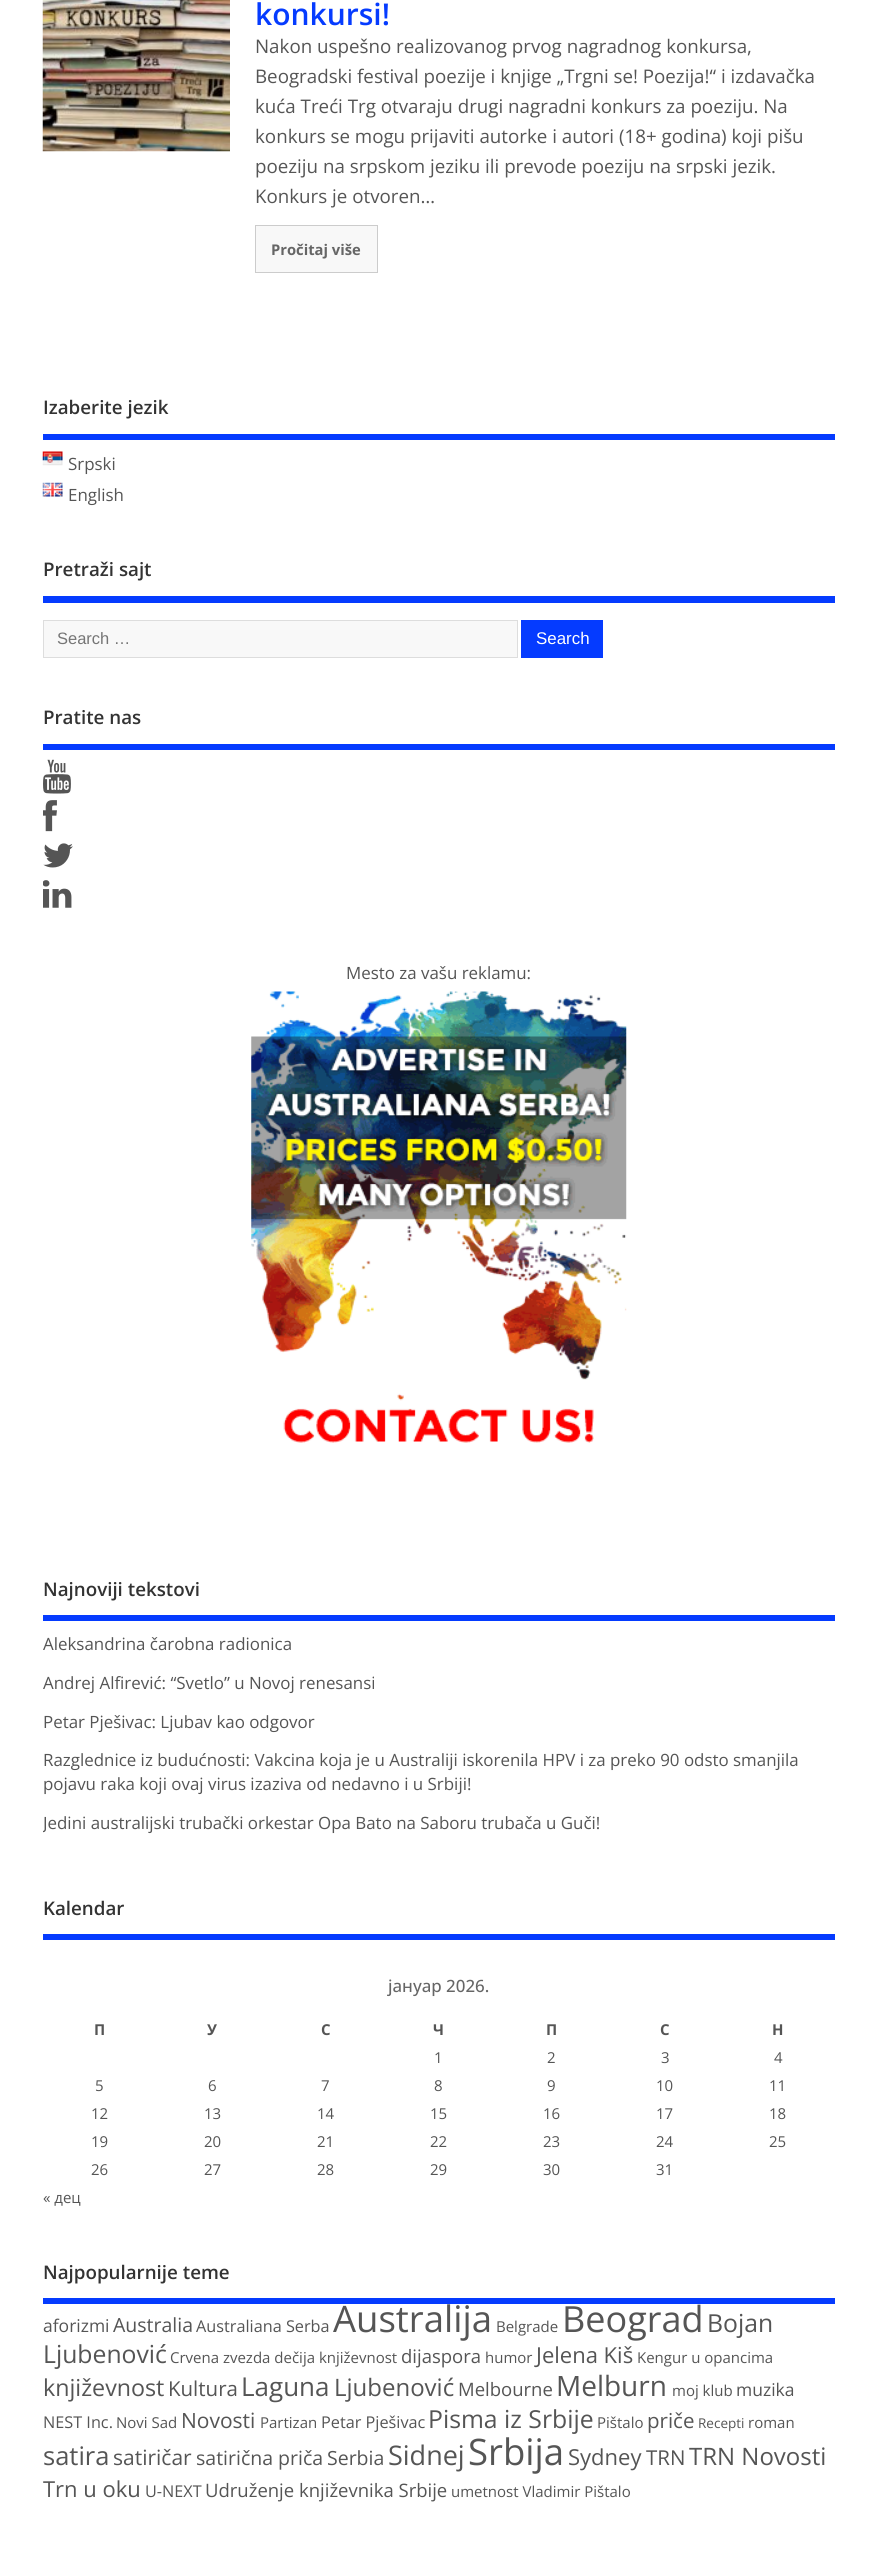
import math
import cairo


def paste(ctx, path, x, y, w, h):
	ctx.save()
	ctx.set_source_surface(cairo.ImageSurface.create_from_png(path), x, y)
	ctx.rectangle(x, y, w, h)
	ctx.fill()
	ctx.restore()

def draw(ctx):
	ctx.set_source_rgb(1, 1, 1)
	ctx.paint()
	paste(ctx, 'media/1.png', 42, 0, 188, 152)
	ctx.select_font_face('Open Sans SemiBold')
	ctx.set_font_size(30)
	ctx.set_source_rgb(0.02, 0.231, 1)
	ctx.move_to(255, 25)
	ctx.show_text('konkursi!')
	ctx.select_font_face('Open Sans')
	ctx.set_font_size(18.75)
	ctx.set_source_rgb(0.333, 0.333, 0.333)
	for x, y, s in [
		(255, 53, 'Nakon uspešno realizovanog prvog nagradnog konkursa,'),
		(255, 83, 'Beogradski festival poezije i knjige „Trgni se! Poezija!“ i izdavačka'),
		(255, 113, 'kuća Treći Trg otvaraju drugi nagradni konkurs za poeziju. Na'),
		(255, 143, 'konkurs se mogu prijaviti autorke i autori (18+ godina) koji pišu'),
		(255, 173, 'poeziju na srpskom jeziku ili prevode poeziju na srpski jezik.'),
		(255, 203, 'Konkurs je otvoren…'),
	]:
		ctx.move_to(x, y)
		ctx.show_text(s)
	ctx.set_source_rgb(0.969, 0.969, 0.969)
	ctx.rectangle(255.5, 225.5, 122, 47)
	ctx.fill_preserve()
	ctx.set_source_rgb(0.8, 0.8, 0.8)
	ctx.set_line_width(1)
	ctx.stroke()
	ctx.select_font_face('Open Sans', cairo.FONT_SLANT_NORMAL, cairo.FONT_WEIGHT_BOLD)
	ctx.set_font_size(14.75)
	ctx.set_source_rgb(0.4, 0.4, 0.4)
	ctx.move_to(271, 255)
	ctx.show_text('Pročitaj više')
	ctx.set_source_rgb(0.02, 0.231, 1)
	ctx.rectangle(43, 434, 792, 6)
	ctx.fill()
	ctx.select_font_face('Open Sans SemiBold')
	ctx.set_font_size(18.75)
	ctx.set_source_rgb(0.2, 0.2, 0.2)
	ctx.move_to(43, 414)
	ctx.show_text('Izaberite jezik')
	paste(ctx, 'media/2.png', 42, 451, 21, 15)
	ctx.select_font_face('Open Sans')
	ctx.set_font_size(16.9)
	ctx.set_source_rgb(0.333, 0.333, 0.333)
	ctx.move_to(68, 470)
	ctx.show_text('Srpski')
	paste(ctx, 'media/3.png', 42, 482, 21, 15)
	ctx.move_to(68, 501)
	ctx.show_text('English')
	ctx.set_source_rgb(0.02, 0.231, 1)
	ctx.rectangle(43, 596, 792, 7)
	ctx.fill()
	ctx.select_font_face('Open Sans SemiBold')
	ctx.set_font_size(18.75)
	ctx.set_source_rgb(0.2, 0.2, 0.2)
	ctx.move_to(43, 576)
	ctx.show_text('Pretraži sajt')
	ctx.set_source_rgb(0.969, 0.969, 0.969)
	ctx.rectangle(43.5, 620.5, 474, 37)
	ctx.fill_preserve()
	ctx.set_source_rgb(0.867, 0.867, 0.867)
	ctx.stroke()
	ctx.select_font_face('Liberation Sans')
	ctx.set_font_size(16.5)
	ctx.set_source_rgb(0.459, 0.459, 0.459)
	ctx.move_to(57, 644)
	ctx.show_text('Search …')
	ctx.set_source_rgb(0.02, 0.231, 1)
	ctx.rectangle(521, 620, 82, 38)
	ctx.fill()
	ctx.set_font_size(16.9)
	ctx.set_source_rgb(1, 1, 1)
	ctx.move_to(536, 644)
	ctx.show_text('Search')
	ctx.set_source_rgb(0.02, 0.231, 1)
	ctx.rectangle(43, 744, 792, 6)
	ctx.fill()
	ctx.select_font_face('Open Sans SemiBold')
	ctx.set_font_size(18.75)
	ctx.set_source_rgb(0.2, 0.2, 0.2)
	ctx.move_to(43, 724)
	ctx.show_text('Pratite nas')
	paste(ctx, 'media/4.png', 43, 759, 28, 35)
	paste(ctx, 'media/5.png', 43, 800, 14, 32)
	paste(ctx, 'media/6.png', 43, 843, 30, 25)
	paste(ctx, 'media/7.png', 43, 880, 29, 28)
	ctx.select_font_face('Open Sans')
	ctx.set_font_size(16.9)
	ctx.set_source_rgb(0.333, 0.333, 0.333)
	ctx.move_to(346, 979)
	ctx.show_text('Mesto za vašu reklamu:')
	paste(ctx, 'media/8.png', 251, 991, 376, 452)
	ctx.set_source_rgb(0.02, 0.231, 1)
	ctx.rectangle(43, 1615, 792, 6)
	ctx.fill()
	ctx.select_font_face('Open Sans SemiBold')
	ctx.set_font_size(18.75)
	ctx.set_source_rgb(0.2, 0.2, 0.2)
	ctx.move_to(43, 1596)
	ctx.show_text('Najnoviji tekstovi')
	ctx.select_font_face('Open Sans')
	ctx.set_font_size(16.9)
	ctx.set_source_rgb(0.333, 0.333, 0.333)
	for x, y, s in [
		(43, 1650, 'Aleksandrina čarobna radionica'),
		(43, 1689, 'Andrej Alfirević: “Svetlo” u Novoj renesansi'),
		(43, 1728, 'Petar Pješivac: Ljubav kao odgovor'),
		(43, 1766, 'Razglednice iz budućnosti: Vakcina koja je u Australiji iskorenila HPV i za preko 90 odsto smanjila'),
		(43, 1790, 'pojavu raka koji ovaj virus izaziva od nedavno i u Srbiji!'),
	]:
		ctx.move_to(x, y)
		ctx.show_text(s)
	ctx.save()
	ctx.rectangle(43, 1631, 792, 218)
	ctx.clip()
	ctx.move_to(43, 1829)
	ctx.show_text('Jedini australijski trubački orkestar Opa Bato na Saboru trubača u Guči!')
	ctx.restore()
	ctx.set_source_rgb(0.02, 0.231, 1)
	ctx.rectangle(43, 1934, 792, 6)
	ctx.fill()
	ctx.select_font_face('Open Sans SemiBold')
	ctx.set_font_size(18.75)
	ctx.set_source_rgb(0.2, 0.2, 0.2)
	ctx.move_to(43, 1915)
	ctx.show_text('Kalendar')
	ctx.select_font_face('Open Sans Medium')
	ctx.set_font_size(16.9)
	ctx.set_source_rgb(0.4, 0.4, 0.4)
	ctx.move_to(388, 1992)
	ctx.show_text('јануар 2026.')
	ctx.select_font_face('Open Sans', cairo.FONT_SLANT_NORMAL, cairo.FONT_WEIGHT_BOLD)
	ctx.set_font_size(15)
	ctx.set_source_rgb(0.333, 0.333, 0.333)
	for x, y, s in [
		(94, 2035, 'П'),
		(207, 2035, 'У'),
		(321, 2035, 'С'),
		(433, 2035, 'Ч'),
		(546, 2035, 'П'),
		(660, 2035, 'С'),
		(772, 2035, 'Н'),
	]:
		ctx.move_to(x, y)
		ctx.show_text(s)
	ctx.select_font_face('Open Sans')
	for x, y, s in [
		(434, 2063, '1'),
		(547, 2063, '2'),
		(661, 2063, '3'),
		(774, 2063, '4'),
		(95, 2091, '5'),
		(208, 2091, '6'),
		(321, 2091, '7'),
		(434, 2091, '8'),
		(547, 2091, '9'),
		(656, 2091, '10'),
		(769, 2091, '11'),
		(91, 2119, '12'),
		(204, 2119, '13'),
		(317, 2119, '14'),
		(430, 2119, '15'),
		(543, 2119, '16'),
		(656, 2119, '17'),
		(769, 2119, '18'),
		(91, 2147, '19'),
		(204, 2147, '20'),
		(317, 2147, '21'),
		(430, 2147, '22'),
		(543, 2147, '23'),
		(656, 2147, '24'),
		(769, 2147, '25'),
		(91, 2175, '26'),
		(204, 2175, '27'),
		(317, 2175, '28'),
		(430, 2175, '29'),
		(543, 2175, '30'),
		(656, 2175, '31'),
		(43, 2203, '« дец'),
	]:
		ctx.move_to(x, y)
		ctx.show_text(s)
	ctx.set_source_rgb(0.02, 0.231, 1)
	ctx.rectangle(43, 2298, 792, 6)
	ctx.fill()
	ctx.select_font_face('Open Sans SemiBold')
	ctx.set_font_size(18.75)
	ctx.set_source_rgb(0.2, 0.2, 0.2)
	ctx.move_to(43, 2279)
	ctx.show_text('Najpopularnije teme')
	ctx.select_font_face('Open Sans')
	ctx.set_font_size(17.5)
	ctx.set_source_rgb(0.333, 0.333, 0.333)
	ctx.move_to(43, 2332)
	ctx.show_text('aforizmi')
	ctx.set_font_size(19.5)
	ctx.move_to(113, 2332)
	ctx.show_text('Australia')
	ctx.set_font_size(16.25)
	ctx.move_to(196, 2332)
	ctx.show_text('Australiana Serba')
	ctx.set_font_size(36.5)
	ctx.move_to(333, 2332)
	ctx.show_text('Australija')
	ctx.set_font_size(15)
	ctx.move_to(496, 2332)
	ctx.show_text('Belgrade')
	ctx.set_font_size(36)
	ctx.move_to(562, 2332)
	ctx.show_text('Beograd')
	ctx.set_font_size(24.75)
	ctx.move_to(707, 2332)
	ctx.show_text('Bojan')
	ctx.move_to(43, 2363)
	ctx.show_text('Ljubenović')
	ctx.set_font_size(15)
	ctx.move_to(170, 2363)
	ctx.show_text('Crvena zvezda dečija književnost')
	ctx.set_font_size(18.5)
	ctx.move_to(401, 2363)
	ctx.show_text('dijaspora')
	ctx.set_font_size(15)
	ctx.move_to(485, 2363)
	ctx.show_text('humor')
	ctx.set_font_size(22)
	ctx.move_to(536, 2363)
	ctx.show_text('Jelena Kiš')
	ctx.set_font_size(15)
	ctx.move_to(637, 2363)
	ctx.show_text('Kengur u opancima')
	ctx.set_font_size(23.25)
	ctx.move_to(43, 2396)
	ctx.show_text('književnost')
	ctx.set_font_size(20.5)
	ctx.move_to(168, 2396)
	ctx.show_text('Kultura')
	ctx.set_font_size(26)
	ctx.move_to(241, 2396)
	ctx.show_text('Laguna')
	ctx.set_font_size(24)
	ctx.move_to(334, 2396)
	ctx.show_text('Ljubenović')
	ctx.set_font_size(18.5)
	ctx.move_to(458, 2396)
	ctx.show_text('Melbourne')
	ctx.set_font_size(28)
	ctx.move_to(556, 2396)
	ctx.show_text('Melburn')
	ctx.set_font_size(15)
	ctx.move_to(672, 2396)
	ctx.show_text('moj klub')
	ctx.set_font_size(17.5)
	ctx.move_to(736, 2396)
	ctx.show_text('muzika')
	ctx.set_font_size(16.25)
	ctx.move_to(43, 2428)
	ctx.show_text('NEST Inc.')
	ctx.set_font_size(15)
	ctx.move_to(116, 2428)
	ctx.show_text('Novi Sad')
	ctx.set_font_size(21)
	ctx.move_to(181, 2428)
	ctx.show_text('Novosti')
	ctx.set_font_size(15)
	ctx.move_to(260, 2428)
	ctx.show_text('Partizan')
	ctx.set_font_size(16.25)
	ctx.move_to(321, 2428)
	ctx.show_text('Petar Pješivac')
	ctx.set_font_size(24.75)
	ctx.move_to(428, 2428)
	ctx.show_text('Pisma iz Srbije')
	ctx.set_font_size(15)
	ctx.move_to(597, 2428)
	ctx.show_text('Pištalo')
	ctx.set_font_size(20.5)
	ctx.move_to(647, 2428)
	ctx.show_text('priče')
	ctx.set_font_size(13.5)
	ctx.move_to(698, 2428)
	ctx.show_text('Recepti')
	ctx.set_font_size(15)
	ctx.move_to(748, 2428)
	ctx.show_text('roman')
	ctx.set_font_size(25.5)
	ctx.move_to(43, 2465)
	ctx.show_text('satira')
	ctx.set_font_size(21)
	ctx.move_to(113, 2465)
	ctx.show_text('satiričar')
	ctx.set_font_size(19.5)
	ctx.move_to(196, 2465)
	ctx.show_text('satirična priča')
	ctx.move_to(327, 2465)
	ctx.show_text('Serbia')
	ctx.set_font_size(27)
	ctx.move_to(388, 2465)
	ctx.show_text('Sidnej')
	ctx.set_font_size(36.5)
	ctx.move_to(468, 2465)
	ctx.show_text('Srbija')
	ctx.set_font_size(22)
	ctx.move_to(568, 2465)
	ctx.show_text('Sydney')
	ctx.set_font_size(20.5)
	ctx.move_to(646, 2465)
	ctx.show_text('TRN')
	ctx.set_font_size(24)
	ctx.move_to(689, 2465)
	ctx.show_text('TRN Novosti')
	ctx.set_font_size(22)
	ctx.move_to(43, 2497)
	ctx.show_text('Trn u oku')
	ctx.set_font_size(16.25)
	ctx.move_to(145, 2497)
	ctx.show_text('U-NEXT')
	ctx.set_font_size(18.5)
	ctx.move_to(205, 2497)
	ctx.show_text('Udruženje književnika Srbije')
	ctx.set_font_size(15)
	ctx.move_to(451, 2497)
	ctx.show_text('umetnost Vladimir Pištalo')


surface = cairo.ImageSurface(cairo.FORMAT_RGB24, 877, 2552)
ctx = cairo.Context(surface)
options = cairo.FontOptions()
options.set_hint_metrics(cairo.HINT_METRICS_OFF)
options.set_hint_style(cairo.HINT_STYLE_NONE)
ctx.set_font_options(options)
ctx.set_miter_limit(4)
draw(ctx)
surface.write_to_png('image.png')
